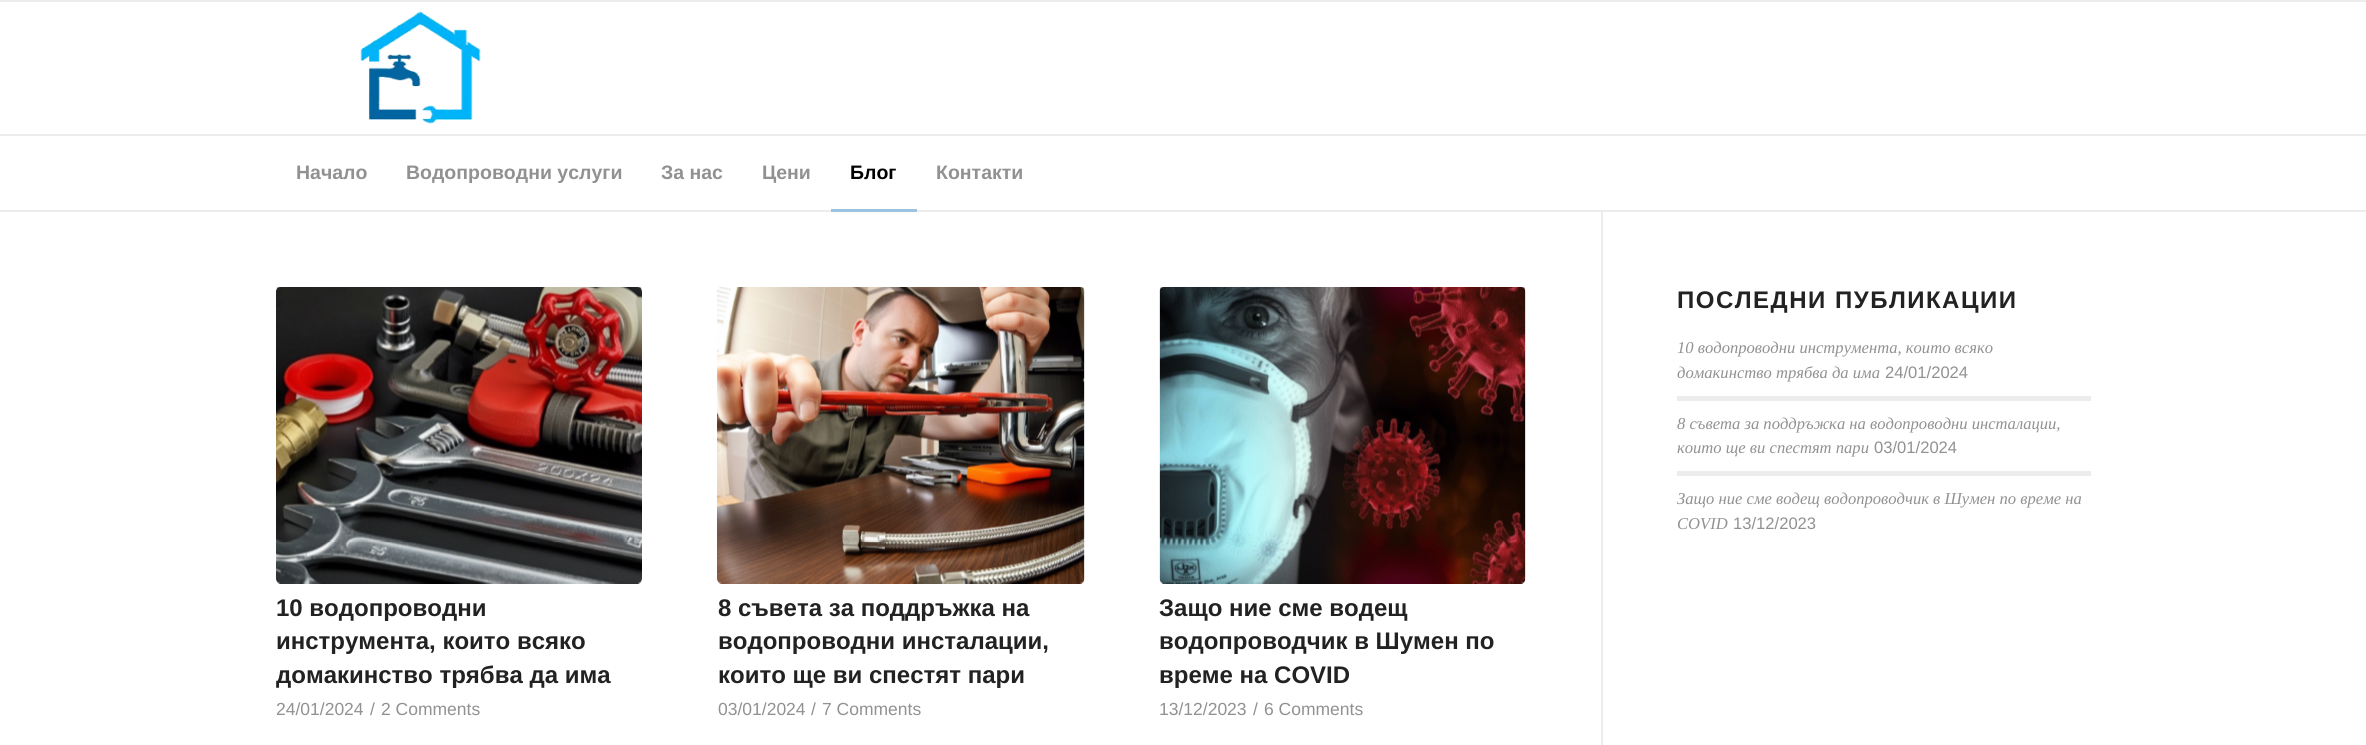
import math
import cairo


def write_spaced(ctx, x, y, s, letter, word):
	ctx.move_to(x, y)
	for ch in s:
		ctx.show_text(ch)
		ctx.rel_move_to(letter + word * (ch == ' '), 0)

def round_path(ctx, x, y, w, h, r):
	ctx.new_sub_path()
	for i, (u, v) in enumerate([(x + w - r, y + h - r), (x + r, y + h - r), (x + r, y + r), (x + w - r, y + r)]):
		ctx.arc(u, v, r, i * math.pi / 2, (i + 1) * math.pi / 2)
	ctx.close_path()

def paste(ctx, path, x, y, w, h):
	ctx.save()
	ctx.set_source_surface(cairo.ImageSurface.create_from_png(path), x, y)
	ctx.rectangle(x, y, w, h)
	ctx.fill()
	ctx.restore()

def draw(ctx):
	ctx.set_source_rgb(1, 1, 1)
	ctx.paint()
	ctx.set_source_rgb(0.922, 0.922, 0.922)
	ctx.rectangle(0, 0, 2366, 2)
	ctx.fill()
	ctx.rectangle(0, 210, 2366, 2)
	ctx.fill()
	paste(ctx, 'media/1.png', 360, 11, 121, 113)
	ctx.rectangle(0, 134, 2366, 2)
	ctx.fill()
	ctx.select_font_face('Liberation Sans', cairo.FONT_SLANT_NORMAL, cairo.FONT_WEIGHT_BOLD)
	ctx.set_font_size(19.5)
	ctx.set_source_rgb(0.569, 0.569, 0.569)
	for x, y, s in [
		(296, 179, 'Начало'),
		(406, 179, 'Водопроводни услуги'),
		(661, 179, 'За нас'),
		(762, 179, 'Цени'),
	]:
		ctx.move_to(x, y)
		ctx.show_text(s)
	ctx.set_source_rgb(0, 0, 0)
	ctx.move_to(850, 179)
	ctx.show_text('Блог')
	ctx.set_source_rgb(0.612, 0.761, 0.875)
	ctx.rectangle(831, 209, 86, 3)
	ctx.fill()
	ctx.set_source_rgb(0.569, 0.569, 0.569)
	ctx.move_to(936, 179)
	ctx.show_text('Контакти')
	ctx.set_font_size(24)
	ctx.set_source_rgb(0.133, 0.133, 0.133)
	write_spaced(ctx, 1677, 308, 'ПОСЛЕДНИ ПУБЛИКАЦИИ', 1.5, 0)
	ctx.select_font_face('Liberation Serif', cairo.FONT_SLANT_ITALIC)
	ctx.set_font_size(16.6)
	ctx.set_source_rgb(0.569, 0.569, 0.569)
	ctx.move_to(1677, 353)
	ctx.show_text('10 водопроводни инструмента, които всяко')
	ctx.move_to(1677, 378)
	ctx.show_text('домакинство трябва да има')
	ctx.select_font_face('Liberation Sans')
	ctx.move_to(1885, 378)
	ctx.show_text('24/01/2024')
	ctx.set_source_rgb(0.922, 0.922, 0.922)
	ctx.rectangle(1677, 396, 414, 5)
	ctx.fill()
	ctx.select_font_face('Liberation Serif', cairo.FONT_SLANT_ITALIC)
	ctx.set_source_rgb(0.569, 0.569, 0.569)
	ctx.move_to(1677, 429)
	ctx.show_text('8 съвета за поддръжка на водопроводни инсталации,')
	ctx.move_to(1677, 453)
	ctx.show_text('които ще ви спестят пари')
	ctx.select_font_face('Liberation Sans')
	ctx.move_to(1874, 453)
	ctx.show_text('03/01/2024')
	ctx.set_source_rgb(0.922, 0.922, 0.922)
	ctx.rectangle(1677, 471, 414, 5)
	ctx.fill()
	ctx.select_font_face('Liberation Serif', cairo.FONT_SLANT_ITALIC)
	ctx.set_source_rgb(0.569, 0.569, 0.569)
	ctx.move_to(1677, 504)
	ctx.show_text('Защо ние сме водещ водопроводчик в Шумен по време на')
	ctx.move_to(1677, 529)
	ctx.show_text('COVID')
	ctx.select_font_face('Liberation Sans')
	ctx.move_to(1733, 529)
	ctx.show_text('13/12/2023')
	ctx.set_source_rgb(0.922, 0.922, 0.922)
	ctx.rectangle(1601, 212, 2, 533)
	ctx.fill()
	ctx.set_source_rgb(0.973, 0.973, 0.973)
	round_path(ctx, 276, 287, 366, 297, 5)
	ctx.fill()
	paste(ctx, 'media/2.png', 276, 287, 366, 297)
	ctx.select_font_face('Liberation Sans', cairo.FONT_SLANT_NORMAL, cairo.FONT_WEIGHT_BOLD)
	ctx.set_font_size(24)
	ctx.set_source_rgb(0.133, 0.133, 0.133)
	for x, y, s in [
		(276, 616, '10 водопроводни'),
		(276, 649, 'инструмента, които всяко'),
		(276, 683, 'домакинство трябва да има'),
	]:
		ctx.move_to(x, y)
		ctx.show_text(s)
	ctx.select_font_face('Liberation Sans')
	ctx.set_font_size(17.5)
	ctx.set_source_rgb(0.569, 0.569, 0.569)
	for x, y, s in [
		(276, 715, '24/01/2024'),
		(370, 715, '/'),
		(381, 715, '2 Comments'),
	]:
		ctx.move_to(x, y)
		ctx.show_text(s)
	ctx.set_source_rgb(0.973, 0.973, 0.973)
	round_path(ctx, 717, 287, 368, 297, 5)
	ctx.fill()
	paste(ctx, 'media/3.png', 717, 287, 368, 297)
	ctx.select_font_face('Liberation Sans', cairo.FONT_SLANT_NORMAL, cairo.FONT_WEIGHT_BOLD)
	ctx.set_font_size(24)
	ctx.set_source_rgb(0.133, 0.133, 0.133)
	for x, y, s in [
		(718, 616, '8 съвета за поддръжка на'),
		(718, 649, 'водопроводни инсталации,'),
		(718, 683, 'които ще ви спестят пари'),
	]:
		ctx.move_to(x, y)
		ctx.show_text(s)
	ctx.select_font_face('Liberation Sans')
	ctx.set_font_size(17.5)
	ctx.set_source_rgb(0.569, 0.569, 0.569)
	for x, y, s in [
		(718, 715, '03/01/2024'),
		(811, 715, '/'),
		(822, 715, '7 Comments'),
	]:
		ctx.move_to(x, y)
		ctx.show_text(s)
	ctx.set_source_rgb(0.973, 0.973, 0.973)
	round_path(ctx, 1160, 287, 366, 297, 5)
	ctx.fill()
	paste(ctx, 'media/4.png', 1159, 287, 367, 297)
	ctx.select_font_face('Liberation Sans', cairo.FONT_SLANT_NORMAL, cairo.FONT_WEIGHT_BOLD)
	ctx.set_font_size(24)
	ctx.set_source_rgb(0.133, 0.133, 0.133)
	for x, y, s in [
		(1159, 616, 'Защо ние сме водещ'),
		(1159, 649, 'водопроводчик в Шумен по'),
		(1159, 683, 'време на COVID'),
	]:
		ctx.move_to(x, y)
		ctx.show_text(s)
	ctx.select_font_face('Liberation Sans')
	ctx.set_font_size(17.5)
	ctx.set_source_rgb(0.569, 0.569, 0.569)
	for x, y, s in [
		(1159, 715, '13/12/2023'),
		(1253, 715, '/'),
		(1264, 715, '6 Comments'),
	]:
		ctx.move_to(x, y)
		ctx.show_text(s)


surface = cairo.ImageSurface(cairo.FORMAT_RGB24, 2366, 745)
ctx = cairo.Context(surface)
options = cairo.FontOptions()
options.set_hint_metrics(cairo.HINT_METRICS_OFF)
options.set_hint_style(cairo.HINT_STYLE_NONE)
ctx.set_font_options(options)
ctx.set_miter_limit(4)
draw(ctx)
surface.write_to_png('image.png')
